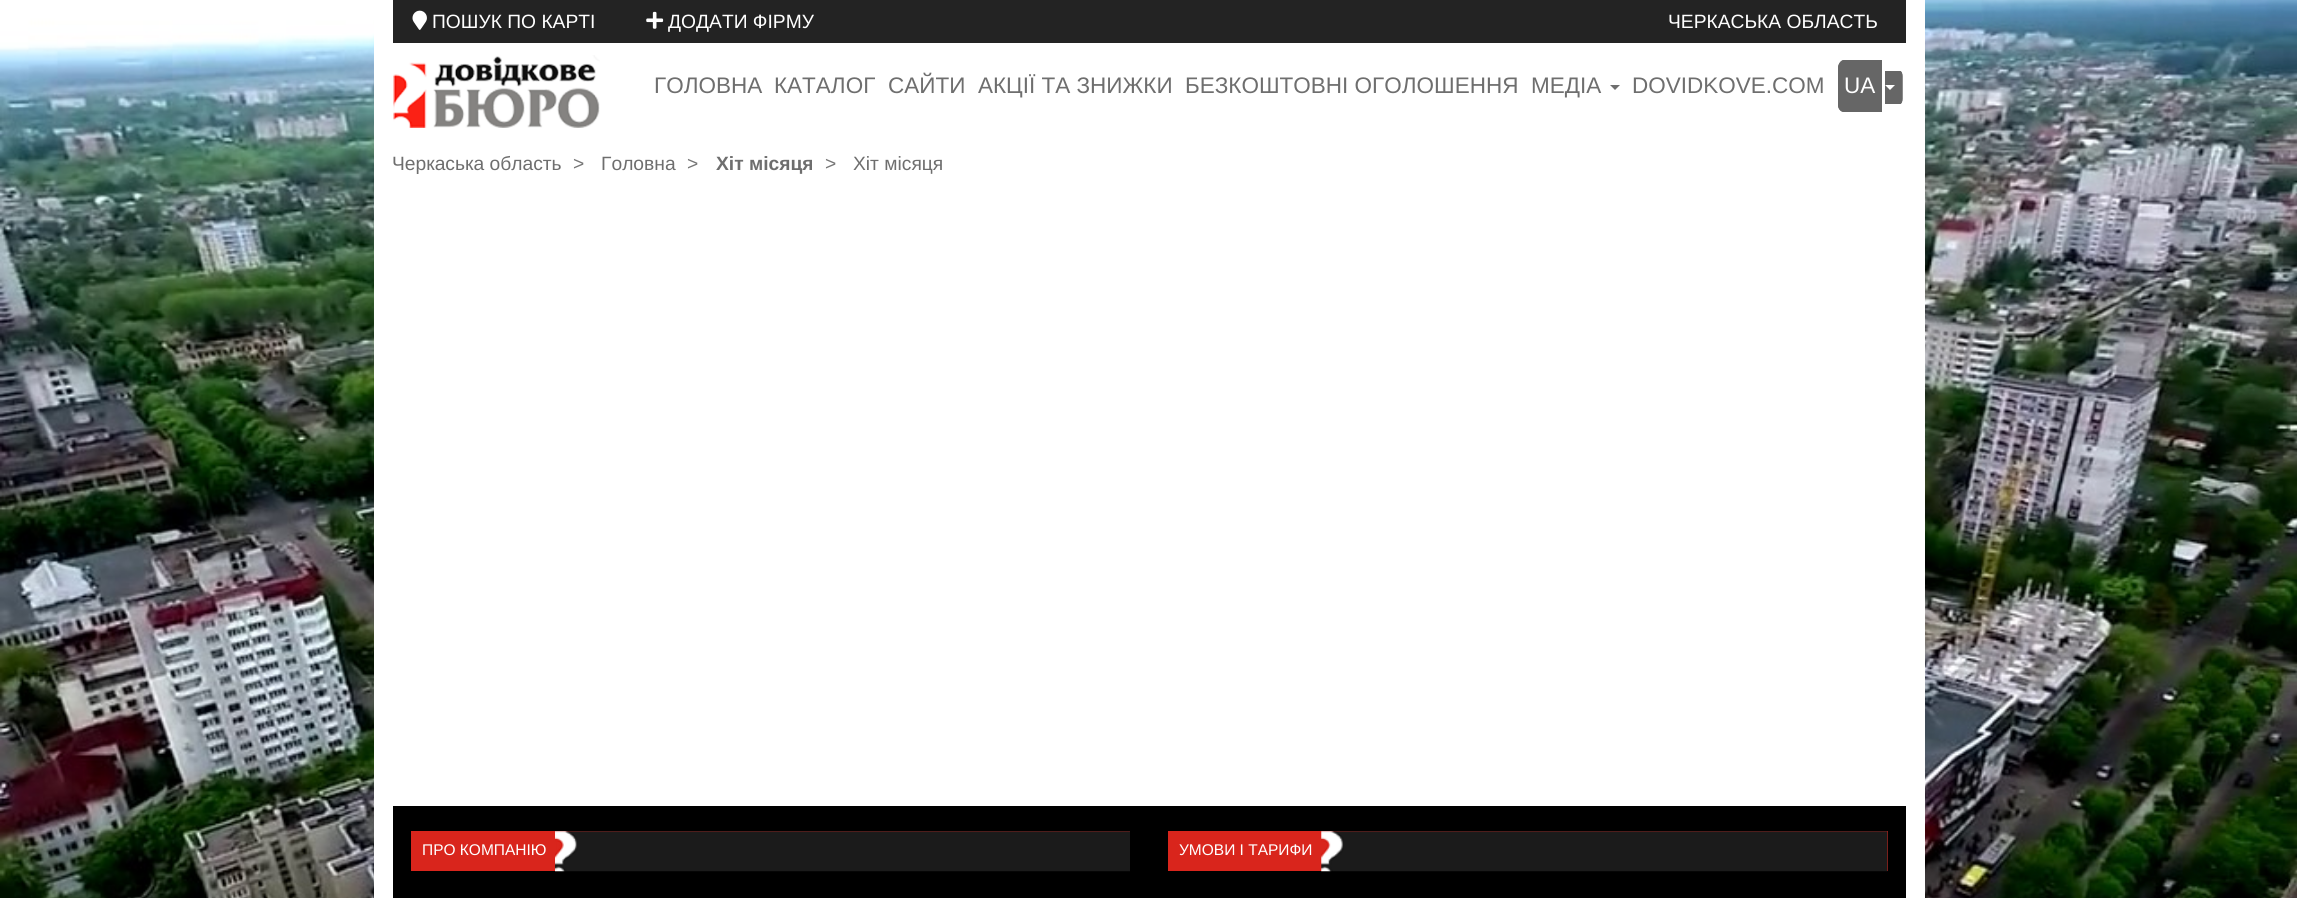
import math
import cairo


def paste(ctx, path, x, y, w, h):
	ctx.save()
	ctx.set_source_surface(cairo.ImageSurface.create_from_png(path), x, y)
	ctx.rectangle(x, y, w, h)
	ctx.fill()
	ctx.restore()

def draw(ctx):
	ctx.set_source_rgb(1, 1, 1)
	ctx.paint()
	paste(ctx, 'media/1.png', 0, 0, 2297, 898)
	ctx.set_source_rgb(1, 1, 1)
	ctx.rectangle(374, 0, 1551, 898)
	ctx.fill()
	ctx.set_source_rgb(0.137, 0.137, 0.137)
	ctx.rectangle(393, 0, 1513, 43)
	ctx.fill()
	paste(ctx, 'media/2.png', 412, 10, 15, 20)
	ctx.select_font_face('Liberation Sans')
	ctx.set_font_size(19.25)
	ctx.set_source_rgb(1, 1, 1)
	ctx.move_to(432, 28)
	ctx.show_text('ПОШУК ПО КАРТІ')
	paste(ctx, 'media/3.png', 646, 11, 18, 18)
	ctx.move_to(668, 28)
	ctx.show_text('ДОДАТИ ФІРМУ')
	ctx.move_to(1668, 28)
	ctx.show_text('ЧЕРКАСЬКА ОБЛАСТЬ')
	paste(ctx, 'media/4.png', 393, 55, 207, 73)
	ctx.set_font_size(22.5)
	ctx.set_source_rgb(0.431, 0.431, 0.431)
	for x, y, s in [
		(654, 93, 'ГОЛОВНА'),
		(774, 93, 'КАТАЛОГ'),
		(888, 93, 'САЙТИ'),
		(978, 93, 'АКЦІЇ ТА ЗНИЖКИ'),
		(1185, 93, 'БЕЗКОШТОВНІ ОГОЛОШЕННЯ'),
		(1531, 93, 'МЕДІА'),
	]:
		ctx.move_to(x, y)
		ctx.show_text(s)
	ctx.new_path()
	ctx.move_to(1610, 85)
	ctx.line_to(1620, 85)
	ctx.line_to(1615, 90)
	ctx.close_path()
	ctx.fill()
	ctx.move_to(1632, 93)
	ctx.show_text('DOVIDKOVE.COM')
	ctx.set_source_rgb(0.4, 0.4, 0.4)
	ctx.new_path()
	ctx.move_to(1844, 60)
	ctx.line_to(1882, 60)
	ctx.line_to(1882, 112)
	ctx.line_to(1844, 112)
	ctx.curve_to(1841, 112, 1838, 109, 1838, 105)
	ctx.line_to(1838, 68)
	ctx.curve_to(1838, 64, 1841, 60, 1844, 60)
	ctx.close_path()
	ctx.fill()
	ctx.set_fill_rule(cairo.FILL_RULE_EVEN_ODD)
	ctx.new_path()
	ctx.move_to(1844, 60)
	ctx.line_to(1882, 60)
	ctx.line_to(1882, 112)
	ctx.line_to(1844, 112)
	ctx.curve_to(1841, 112, 1838, 109, 1838, 105)
	ctx.line_to(1838, 68)
	ctx.curve_to(1838, 64, 1841, 60, 1844, 60)
	ctx.close_path()
	ctx.move_to(1844, 61)
	ctx.line_to(1882, 61)
	ctx.line_to(1882, 111)
	ctx.line_to(1844, 111)
	ctx.curve_to(1841, 111, 1839, 108, 1839, 105)
	ctx.line_to(1839, 68)
	ctx.curve_to(1839, 64, 1841, 61, 1844, 61)
	ctx.close_path()
	ctx.fill()
	ctx.set_fill_rule(cairo.FILL_RULE_WINDING)
	ctx.new_path()
	ctx.move_to(1885, 71)
	ctx.line_to(1900, 71)
	ctx.curve_to(1901.5, 71, 1902.5, 73.5, 1902.5, 76)
	ctx.line_to(1902.5, 99)
	ctx.curve_to(1902.5, 101.5, 1901.5, 104, 1900, 104)
	ctx.line_to(1885, 104)
	ctx.close_path()
	ctx.fill()
	ctx.set_fill_rule(cairo.FILL_RULE_EVEN_ODD)
	ctx.new_path()
	ctx.move_to(1885, 71)
	ctx.line_to(1900, 71)
	ctx.curve_to(1901.5, 71, 1902.5, 73.5, 1902.5, 76)
	ctx.line_to(1902.5, 99)
	ctx.curve_to(1902.5, 101.5, 1901.5, 104, 1900, 104)
	ctx.line_to(1885, 104)
	ctx.close_path()
	ctx.move_to(1885, 72.5)
	ctx.line_to(1900, 72.5)
	ctx.curve_to(1900.5, 72.5, 1901, 74, 1901, 76)
	ctx.line_to(1901, 99)
	ctx.curve_to(1901, 101, 1900.5, 102.5, 1900, 102.5)
	ctx.line_to(1885, 102.5)
	ctx.close_path()
	ctx.fill()
	ctx.set_source_rgb(1, 1, 1)
	ctx.move_to(1844, 93)
	ctx.show_text('UA')
	ctx.set_fill_rule(cairo.FILL_RULE_WINDING)
	ctx.new_path()
	ctx.move_to(1885, 85)
	ctx.line_to(1895, 85)
	ctx.line_to(1890, 90)
	ctx.close_path()
	ctx.fill()
	ctx.set_font_size(19.25)
	ctx.set_source_rgb(0.431, 0.431, 0.431)
	ctx.move_to(392, 170)
	ctx.show_text('Черкаська область')
	ctx.set_source_rgb(0.463, 0.463, 0.463)
	ctx.move_to(573, 170)
	ctx.show_text('>')
	ctx.set_source_rgb(0.431, 0.431, 0.431)
	ctx.move_to(601, 170)
	ctx.show_text('Головна')
	ctx.set_source_rgb(0.463, 0.463, 0.463)
	ctx.move_to(687, 170)
	ctx.show_text('>')
	ctx.select_font_face('Liberation Sans', cairo.FONT_SLANT_NORMAL, cairo.FONT_WEIGHT_BOLD)
	ctx.set_source_rgb(0.431, 0.431, 0.431)
	ctx.move_to(716, 170)
	ctx.show_text('Хіт місяця')
	ctx.select_font_face('Liberation Sans')
	ctx.set_source_rgb(0.463, 0.463, 0.463)
	ctx.move_to(825, 170)
	ctx.show_text('>')
	ctx.set_source_rgb(0.431, 0.431, 0.431)
	ctx.move_to(853, 170)
	ctx.show_text('Хіт місяця')
	ctx.set_source_rgb(0, 0, 0)
	ctx.rectangle(393, 806, 1513, 92)
	ctx.fill()
	ctx.set_source_rgb(0.851, 0.145, 0.11)
	ctx.rectangle(411, 831, 719, 40)
	ctx.fill()
	paste(ctx, 'media/5.png', 555, 831, 575, 41)
	ctx.set_font_size(15.5)
	ctx.set_source_rgb(1, 1, 1)
	ctx.move_to(422, 855)
	ctx.show_text('ПРО КОМПАНІЮ')
	ctx.set_source_rgb(0.851, 0.145, 0.11)
	ctx.rectangle(1168, 831, 720, 40)
	ctx.fill()
	paste(ctx, 'media/6.png', 1321, 831, 567, 41)
	ctx.set_source_rgb(1, 1, 1)
	ctx.move_to(1179, 855)
	ctx.show_text('УМОВИ І ТАРИФИ')


surface = cairo.ImageSurface(cairo.FORMAT_RGB24, 2297, 898)
ctx = cairo.Context(surface)
options = cairo.FontOptions()
options.set_hint_metrics(cairo.HINT_METRICS_OFF)
options.set_hint_style(cairo.HINT_STYLE_NONE)
ctx.set_font_options(options)
ctx.set_miter_limit(4)
draw(ctx)
surface.write_to_png('image.png')
